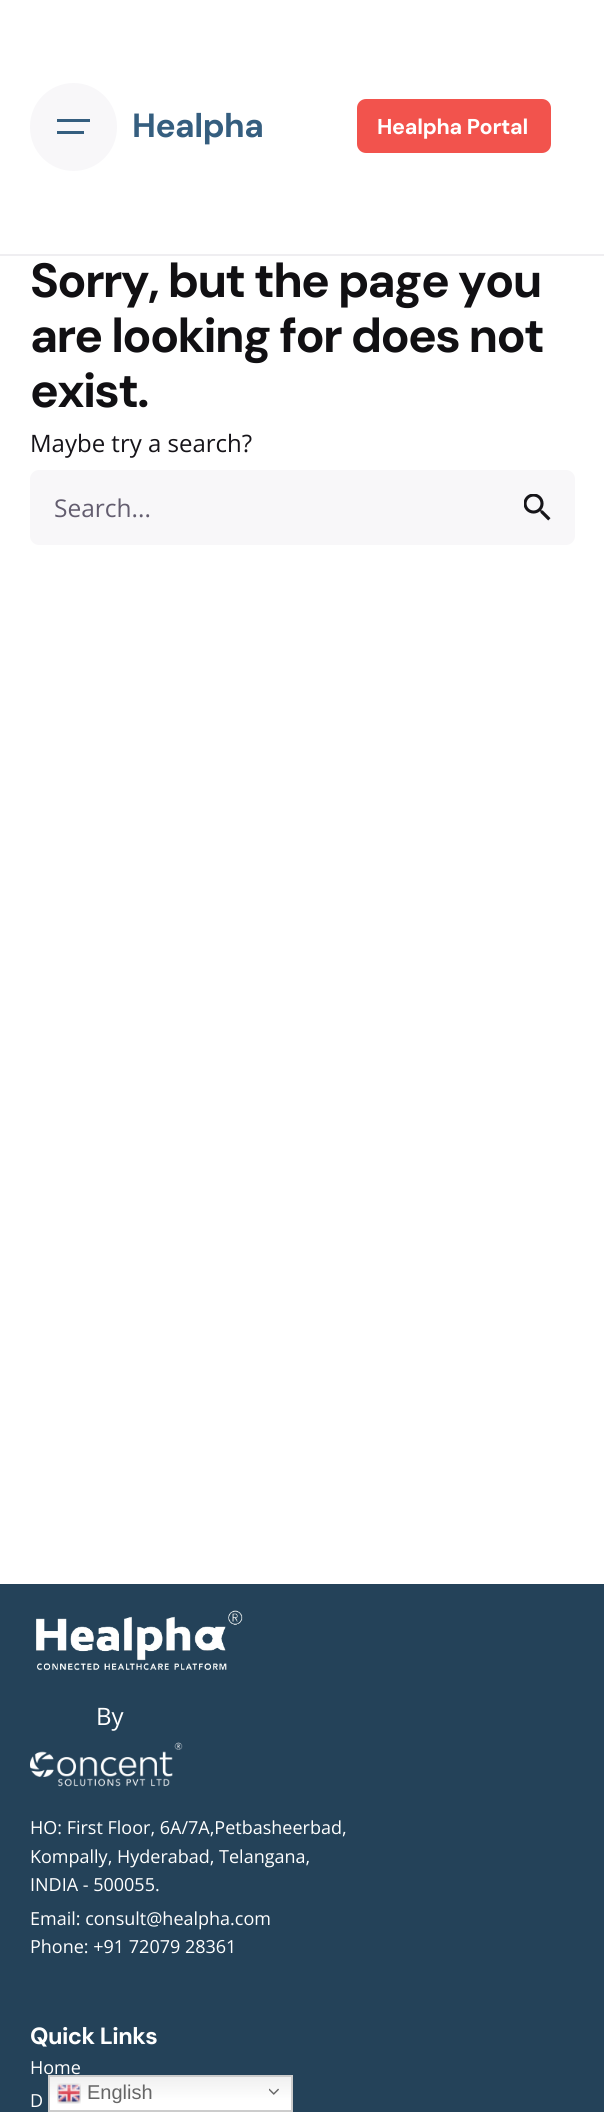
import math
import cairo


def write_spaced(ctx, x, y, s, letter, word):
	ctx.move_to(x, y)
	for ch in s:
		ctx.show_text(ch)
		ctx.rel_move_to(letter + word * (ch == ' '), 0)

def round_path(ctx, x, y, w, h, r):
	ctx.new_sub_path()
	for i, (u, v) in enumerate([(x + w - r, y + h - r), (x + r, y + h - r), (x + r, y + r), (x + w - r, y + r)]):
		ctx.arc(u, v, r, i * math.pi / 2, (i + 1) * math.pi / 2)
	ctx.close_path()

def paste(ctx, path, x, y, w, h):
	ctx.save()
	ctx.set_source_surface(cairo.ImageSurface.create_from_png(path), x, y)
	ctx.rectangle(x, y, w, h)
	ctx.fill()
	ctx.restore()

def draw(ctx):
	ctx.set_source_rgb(1, 1, 1)
	ctx.paint()
	ctx.set_source_rgb(0.937, 0.933, 0.945)
	ctx.rectangle(0, 254, 604, 2)
	ctx.fill()
	ctx.set_source_rgb(0.969, 0.965, 0.973)
	round_path(ctx, 30, 83, 87, 88, 43.5)
	ctx.fill()
	ctx.set_source_rgb(0.208, 0.369, 0.498)
	ctx.rectangle(57, 119, 33, 3)
	ctx.fill()
	ctx.rectangle(57, 131, 27, 3)
	ctx.fill()
	ctx.select_font_face('DM Sans', cairo.FONT_SLANT_NORMAL, cairo.FONT_WEIGHT_BOLD)
	ctx.set_font_size(33.5)
	write_spaced(ctx, 132, 137, 'Healpha', -0.5, 0)
	ctx.set_source_rgb(0.949, 0.325, 0.302)
	round_path(ctx, 357, 99, 194, 54, 9)
	ctx.fill()
	ctx.set_font_size(21.5)
	ctx.set_source_rgb(1, 1, 1)
	write_spaced(ctx, 377, 134, 'Healpha Portal', -0.25, 0)
	ctx.set_font_size(48)
	ctx.set_source_rgb(0.067, 0.063, 0.075)
	for x, y, s in [
		(30, 297, 'Sorry, but the page you'),
		(30, 352, 'are looking for does not'),
		(30, 407, 'exist.'),
	]:
		write_spaced(ctx, x, y, s, -1.7, 0)
	ctx.select_font_face('Open Sans')
	ctx.set_font_size(24)
	ctx.set_source_rgb(0.086, 0.082, 0.098)
	ctx.move_to(30, 452)
	ctx.show_text('Maybe try a search?')
	ctx.set_source_rgb(0.969, 0.965, 0.973)
	round_path(ctx, 30, 470, 545, 75, 9)
	ctx.fill()
	ctx.set_font_size(24.5)
	ctx.set_source_rgb(0.388, 0.365, 0.435)
	ctx.move_to(54, 517)
	ctx.show_text('Search...')
	paste(ctx, 'media/1.png', 524, 494, 27, 27)
	ctx.set_source_rgb(0.141, 0.259, 0.349)
	ctx.rectangle(0, 1584, 604, 528)
	ctx.fill()
	paste(ctx, 'media/2.png', 36, 1610, 207, 61)
	ctx.set_font_size(24)
	ctx.set_source_rgb(1, 1, 1)
	ctx.move_to(96, 1725)
	ctx.show_text('By')
	paste(ctx, 'media/3.png', 30, 1742, 153, 45)
	ctx.set_font_size(18)
	for x, y, s in [
		(30, 1834, 'HO: First Floor, 6A/7A,Petbasheerbad,'),
		(30, 1863, 'Kompally, Hyderabad, Telangana,'),
		(30, 1891, 'INDIA - 500055.'),
		(30, 1925, 'Email: consult@healpha.com'),
		(30, 1953, 'Phone: +91 72079 28361'),
	]:
		ctx.move_to(x, y)
		ctx.show_text(s)
	ctx.select_font_face('DM Sans', cairo.FONT_SLANT_NORMAL, cairo.FONT_WEIGHT_BOLD)
	ctx.set_font_size(23.5)
	write_spaced(ctx, 30, 2044, 'Quick Links', -0.5, 0)
	ctx.select_font_face('Open Sans')
	ctx.set_font_size(18)
	ctx.move_to(30, 2074)
	ctx.show_text('Home')
	ctx.move_to(30, 2107)
	ctx.show_text('D')
	gradient = cairo.LinearGradient(170, 2075, 170, 2112)
	gradient.add_color_stop_rgba(0, 0.937, 0.937, 0.937, 1)
	gradient.add_color_stop_rgba(0.7, 1, 1, 1, 1)
	ctx.set_source(gradient)
	ctx.rectangle(50, 2077, 241, 33)
	ctx.fill()
	ctx.rectangle(49, 2076, 243, 35)
	ctx.set_source_rgb(0.8, 0.8, 0.8)
	ctx.stroke()
	paste(ctx, 'media/4.png', 57, 2083, 24, 21)
	ctx.select_font_face('Liberation Sans')
	ctx.set_font_size(20)
	ctx.set_source_rgb(0.4, 0.4, 0.4)
	ctx.move_to(87, 2099)
	ctx.show_text('English')
	paste(ctx, 'media/5.png', 269, 2088, 10, 7)


surface = cairo.ImageSurface(cairo.FORMAT_RGB24, 604, 2112)
ctx = cairo.Context(surface)
options = cairo.FontOptions()
options.set_hint_metrics(cairo.HINT_METRICS_OFF)
options.set_hint_style(cairo.HINT_STYLE_NONE)
ctx.set_font_options(options)
ctx.set_miter_limit(4)
draw(ctx)
surface.write_to_png('image.png')
